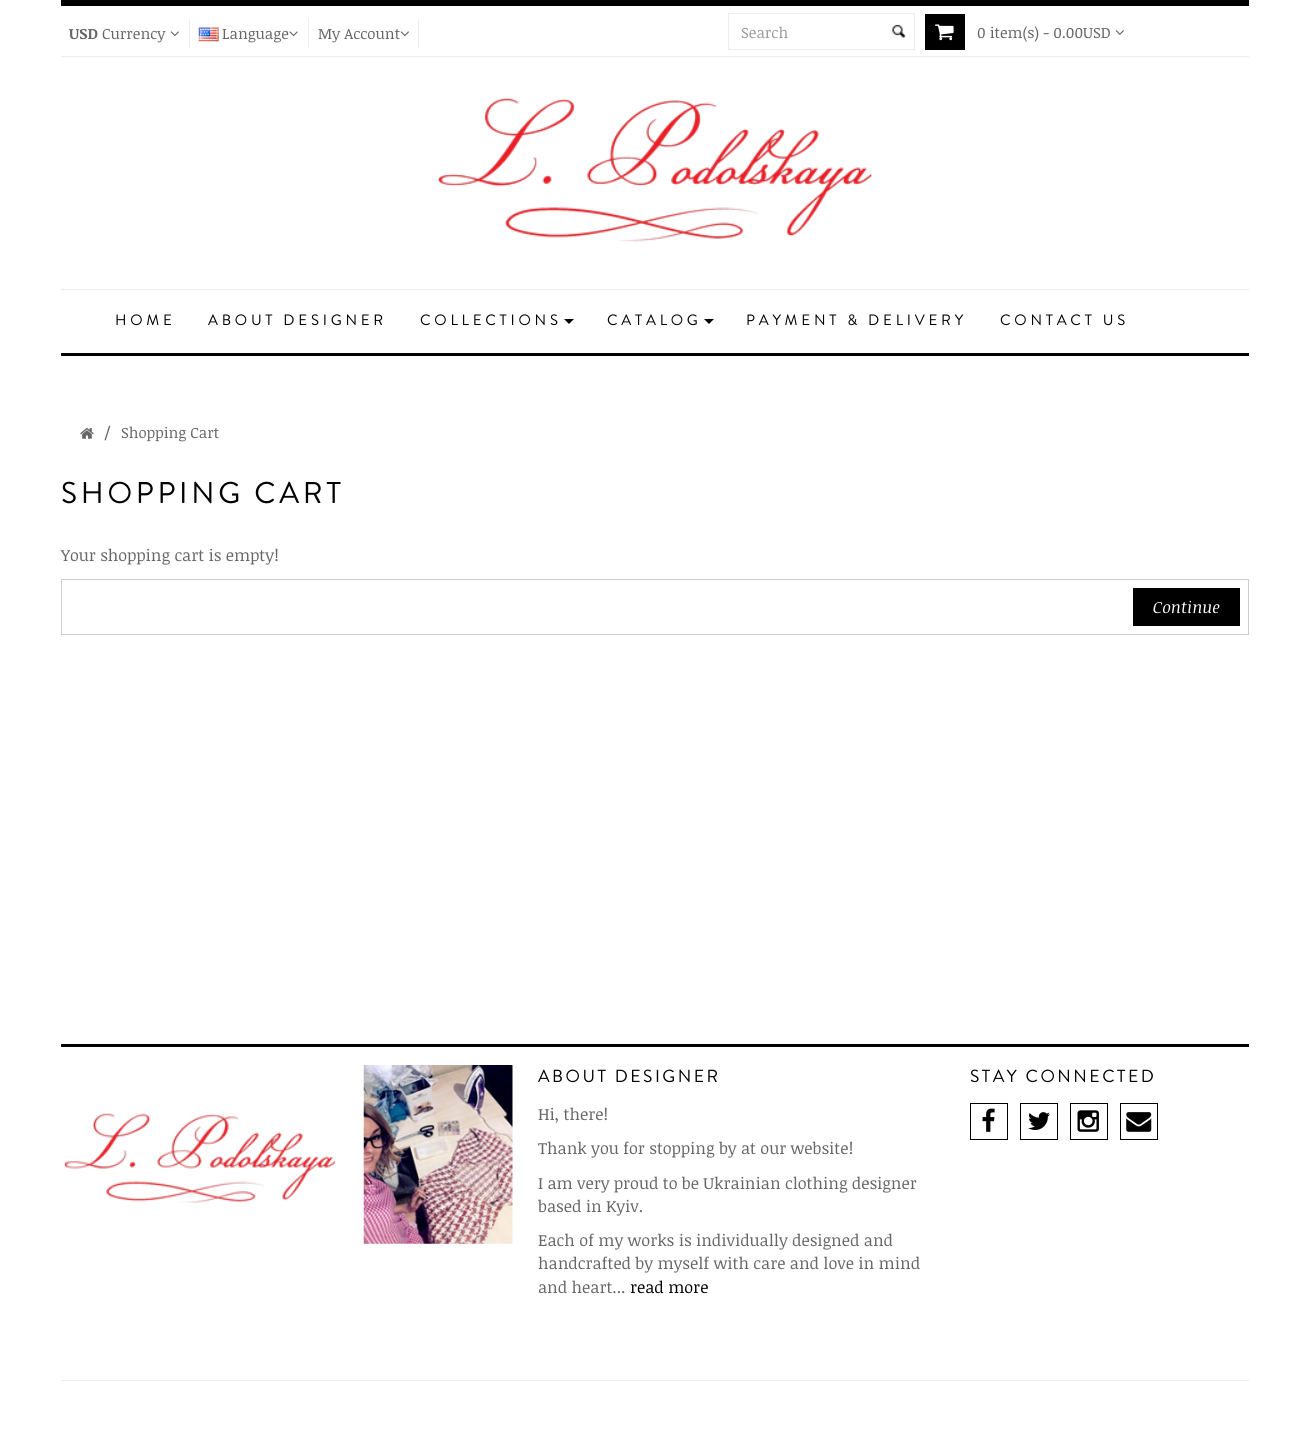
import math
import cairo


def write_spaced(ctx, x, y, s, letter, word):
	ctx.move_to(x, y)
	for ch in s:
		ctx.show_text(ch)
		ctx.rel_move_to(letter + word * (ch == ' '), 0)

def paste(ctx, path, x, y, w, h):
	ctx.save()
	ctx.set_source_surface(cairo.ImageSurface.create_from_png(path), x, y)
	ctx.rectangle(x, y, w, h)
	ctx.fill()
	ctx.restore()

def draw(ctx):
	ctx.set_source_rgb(1, 1, 1)
	ctx.paint()
	ctx.set_source_rgb(0, 0, 0)
	ctx.rectangle(61, 0, 1188, 6)
	ctx.fill()
	ctx.set_source_rgb(0.929, 0.929, 0.929)
	ctx.rectangle(61, 56, 1188, 1)
	ctx.rectangle(189, 19, 1, 29)
	ctx.fill()
	ctx.select_font_face('Noticia Text', cairo.FONT_SLANT_NORMAL, cairo.FONT_WEIGHT_BOLD)
	ctx.set_font_size(15)
	ctx.set_source_rgb(0.4, 0.4, 0.4)
	ctx.move_to(69, 39)
	ctx.show_text('USD')
	ctx.select_font_face('Noticia Text')
	ctx.move_to(102, 39)
	ctx.show_text('Currency')
	paste(ctx, 'media/1.png', 170, 31, 9, 6)
	ctx.set_source_rgb(0.929, 0.929, 0.929)
	ctx.rectangle(308, 19, 1, 29)
	ctx.fill()
	paste(ctx, 'media/2.png', 198, 27, 21, 15)
	ctx.set_source_rgb(0.4, 0.4, 0.4)
	ctx.move_to(222, 39)
	ctx.show_text('Language')
	paste(ctx, 'media/3.png', 289, 31, 9, 6)
	ctx.set_source_rgb(0.929, 0.929, 0.929)
	ctx.rectangle(418, 19, 1, 29)
	ctx.fill()
	ctx.set_source_rgb(0.4, 0.4, 0.4)
	ctx.move_to(318, 39)
	ctx.show_text('My Account')
	paste(ctx, 'media/1.png', 400, 31, 9, 6)
	ctx.rectangle(728.5, 13.5, 186, 36)
	ctx.set_source_rgb(0.929, 0.929, 0.929)
	ctx.set_line_width(1)
	ctx.stroke()
	ctx.set_source_rgb(0.6, 0.6, 0.6)
	ctx.move_to(741, 38)
	ctx.show_text('Search')
	paste(ctx, 'media/4.png', 892, 24, 14, 14)
	ctx.set_source_rgb(0, 0, 0)
	ctx.rectangle(925, 14, 40, 36)
	ctx.fill()
	paste(ctx, 'media/5.png', 935, 24, 19, 17)
	ctx.set_source_rgb(0.4, 0.4, 0.4)
	ctx.move_to(977, 38)
	ctx.show_text('0 item(s) - 0.00USD')
	paste(ctx, 'media/6.png', 1115, 30, 9, 5)
	paste(ctx, 'media/7.png', 438, 98, 434, 144)
	ctx.set_source_rgb(0.929, 0.929, 0.929)
	ctx.rectangle(61, 289, 1188, 1)
	ctx.fill()
	ctx.set_source_rgb(0, 0, 0)
	ctx.rectangle(61, 353, 1188, 3)
	ctx.fill()
	ctx.select_font_face('Brandon Grotesque')
	for x, y, s in [
		(115, 325, 'HOME'),
		(208, 325, 'ABOUT DESIGNER'),
		(420, 325, 'COLLECTIONS'),
	]:
		write_spaced(ctx, x, y, s, 3.75, 0)
	ctx.new_path()
	ctx.move_to(564, 319)
	ctx.line_to(574, 319)
	ctx.line_to(569, 324)
	ctx.close_path()
	ctx.fill()
	write_spaced(ctx, 607, 325, 'CATALOG', 3.75, 0)
	ctx.new_path()
	ctx.move_to(704, 319)
	ctx.line_to(714, 319)
	ctx.line_to(709, 324)
	ctx.close_path()
	ctx.fill()
	write_spaced(ctx, 746, 325, 'PAYMENT & DELIVERY', 3.75, 0)
	write_spaced(ctx, 1000, 325, 'CONTACT US', 3.75, 0)
	paste(ctx, 'media/8.png', 80, 428, 14, 11)
	ctx.select_font_face('Noticia Text')
	ctx.set_font_size(16.25)
	ctx.set_source_rgb(0.4, 0.4, 0.4)
	ctx.move_to(104, 438)
	ctx.show_text('/')
	ctx.set_font_size(15)
	ctx.move_to(121, 438)
	ctx.show_text('Shopping Cart')
	ctx.select_font_face('Brandon Grotesque')
	ctx.set_font_size(30)
	ctx.set_source_rgb(0, 0, 0)
	write_spaced(ctx, 61, 503, 'SHOPPING CART', 3.75, 0)
	ctx.select_font_face('Noticia Text')
	ctx.set_font_size(16.25)
	ctx.set_source_rgb(0.4, 0.4, 0.4)
	ctx.move_to(61, 561)
	ctx.show_text('Your shopping cart is empty!')
	ctx.rectangle(61.5, 579.5, 1187, 55)
	ctx.set_source_rgb(0.8, 0.8, 0.8)
	ctx.stroke()
	ctx.set_source_rgb(0, 0, 0)
	ctx.rectangle(1133, 588, 107, 38)
	ctx.fill()
	ctx.select_font_face('Noticia Text', cairo.FONT_SLANT_ITALIC)
	ctx.set_source_rgb(1, 1, 1)
	ctx.move_to(1153, 613)
	ctx.show_text('Continue')
	ctx.set_source_rgb(0, 0, 0)
	ctx.rectangle(61, 1044, 1188, 3)
	ctx.fill()
	paste(ctx, 'media/9.png', 363, 1065, 150, 179)
	ctx.select_font_face('Brandon Grotesque')
	ctx.set_font_size(17.5)
	write_spaced(ctx, 538, 1082, 'ABOUT DESIGNER', 2.5, 0)
	ctx.select_font_face('Noticia Text')
	ctx.set_font_size(16.25)
	ctx.set_source_rgb(0.4, 0.4, 0.4)
	for x, y, s in [
		(538, 1120, 'Hi, there!'),
		(538, 1154, 'Thank you for stopping by at our website!'),
		(538, 1189, 'I am very proud to be Ukrainian clothing designer'),
		(538, 1212, 'based in Kyiv.'),
		(538, 1246, 'Each of my works is individually designed and'),
		(538, 1269, 'handcrafted by myself with care and love in mind'),
		(538, 1293, 'and heart...'),
	]:
		ctx.move_to(x, y)
		ctx.show_text(s)
	ctx.set_source_rgb(0, 0, 0)
	ctx.move_to(630, 1293)
	ctx.show_text('read more')
	ctx.select_font_face('Brandon Grotesque')
	ctx.set_font_size(17.5)
	write_spaced(ctx, 970, 1082, 'STAY CONNECTED', 2.5, 0)
	ctx.rectangle(970.5, 1103.5, 37, 36)
	ctx.stroke()
	paste(ctx, 'media/10.png', 982, 1108, 13, 24)
	ctx.rectangle(1020.5, 1103.5, 37, 36)
	ctx.stroke()
	paste(ctx, 'media/11.png', 1028, 1112, 22, 18)
	ctx.rectangle(1070.5, 1103.5, 37, 36)
	ctx.stroke()
	paste(ctx, 'media/12.png', 1077, 1110, 22, 22)
	ctx.rectangle(1120.5, 1103.5, 37, 36)
	ctx.stroke()
	paste(ctx, 'media/13.png', 1126, 1112, 26, 20)
	paste(ctx, 'media/14.png', 64, 1113, 272, 90)
	ctx.set_source_rgb(0.929, 0.929, 0.929)
	ctx.rectangle(61, 1380, 1188, 1)
	ctx.fill()


surface = cairo.ImageSurface(cairo.FORMAT_RGB24, 1308, 1433)
ctx = cairo.Context(surface)
options = cairo.FontOptions()
options.set_hint_metrics(cairo.HINT_METRICS_OFF)
options.set_hint_style(cairo.HINT_STYLE_NONE)
ctx.set_font_options(options)
ctx.set_miter_limit(4)
draw(ctx)
surface.write_to_png('image.png')
